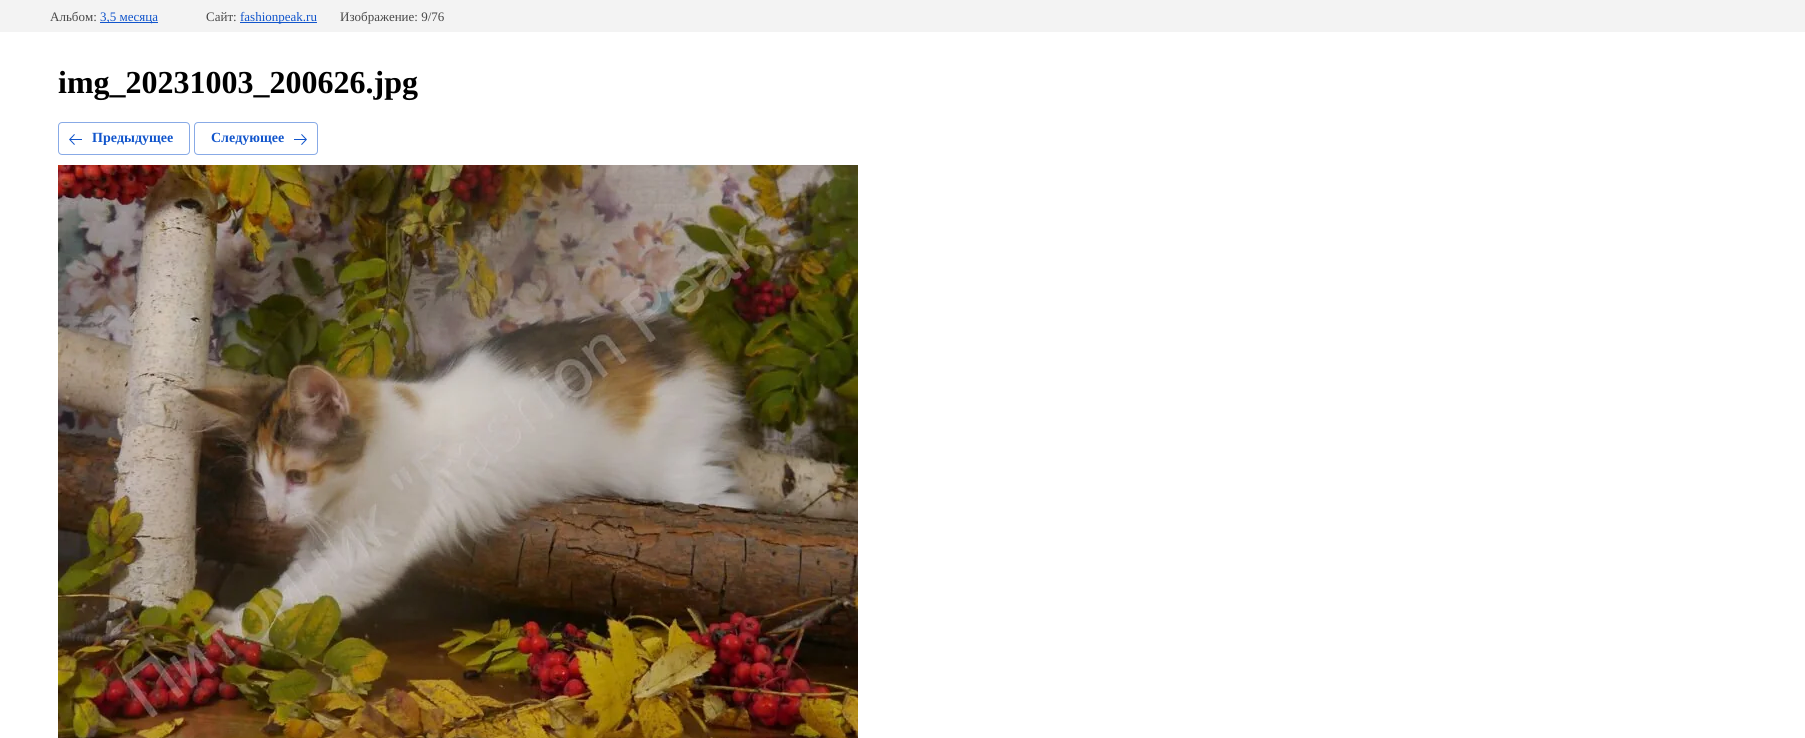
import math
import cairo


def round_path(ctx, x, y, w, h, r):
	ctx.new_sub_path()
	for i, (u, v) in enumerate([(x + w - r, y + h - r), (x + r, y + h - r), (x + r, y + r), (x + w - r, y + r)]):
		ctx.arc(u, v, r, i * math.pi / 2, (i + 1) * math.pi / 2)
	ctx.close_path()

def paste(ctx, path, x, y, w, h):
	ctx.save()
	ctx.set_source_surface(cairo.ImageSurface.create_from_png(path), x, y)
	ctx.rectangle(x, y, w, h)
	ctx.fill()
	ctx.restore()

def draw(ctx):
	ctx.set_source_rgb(1, 1, 1)
	ctx.paint()
	ctx.set_source_rgb(0.953, 0.953, 0.953)
	ctx.rectangle(0, 0, 1805, 32)
	ctx.fill()
	ctx.select_font_face('Liberation Serif')
	ctx.set_font_size(13)
	ctx.set_source_rgb(0.282, 0.282, 0.282)
	ctx.move_to(50, 21)
	ctx.show_text('Альбом:')
	ctx.set_source_rgb(0.067, 0.333, 0.8)
	ctx.rectangle(100, 22, 58, 1)
	ctx.fill()
	ctx.move_to(100, 21)
	ctx.show_text('3,5 месяца')
	ctx.set_source_rgb(0.282, 0.282, 0.282)
	ctx.move_to(206, 21)
	ctx.show_text('Сайт:')
	ctx.set_source_rgb(0.067, 0.333, 0.8)
	ctx.rectangle(240, 22, 77, 1)
	ctx.fill()
	ctx.move_to(240, 21)
	ctx.show_text('fashionpeak.ru')
	ctx.set_source_rgb(0.282, 0.282, 0.282)
	ctx.move_to(340, 21)
	ctx.show_text('Изображение: 9/76')
	ctx.select_font_face('Liberation Serif', cairo.FONT_SLANT_NORMAL, cairo.FONT_WEIGHT_BOLD)
	ctx.set_font_size(32)
	ctx.set_source_rgb(0, 0, 0)
	ctx.move_to(58, 93)
	ctx.show_text('img_20231003_200626.jpg')
	round_path(ctx, 58.5, 122.5, 131, 32, 3.5)
	ctx.set_source_rgb(0.533, 0.667, 0.902)
	ctx.set_line_width(1)
	ctx.stroke()
	paste(ctx, 'media/1.png', 69, 134, 13, 11)
	ctx.set_font_size(14)
	ctx.set_source_rgb(0.067, 0.333, 0.8)
	ctx.move_to(92, 142)
	ctx.show_text('Предыдущее')
	round_path(ctx, 194.5, 122.5, 123, 32, 3.5)
	ctx.set_source_rgb(0.533, 0.667, 0.902)
	ctx.stroke()
	ctx.set_source_rgb(0.067, 0.333, 0.8)
	ctx.move_to(211, 142)
	ctx.show_text('Следующее')
	paste(ctx, 'media/2.png', 294, 134, 13, 11)
	paste(ctx, 'media/3.png', 58, 165, 800, 573)


surface = cairo.ImageSurface(cairo.FORMAT_RGB24, 1805, 738)
ctx = cairo.Context(surface)
options = cairo.FontOptions()
options.set_hint_metrics(cairo.HINT_METRICS_OFF)
options.set_hint_style(cairo.HINT_STYLE_NONE)
ctx.set_font_options(options)
ctx.set_miter_limit(4)
draw(ctx)
surface.write_to_png('image.png')
